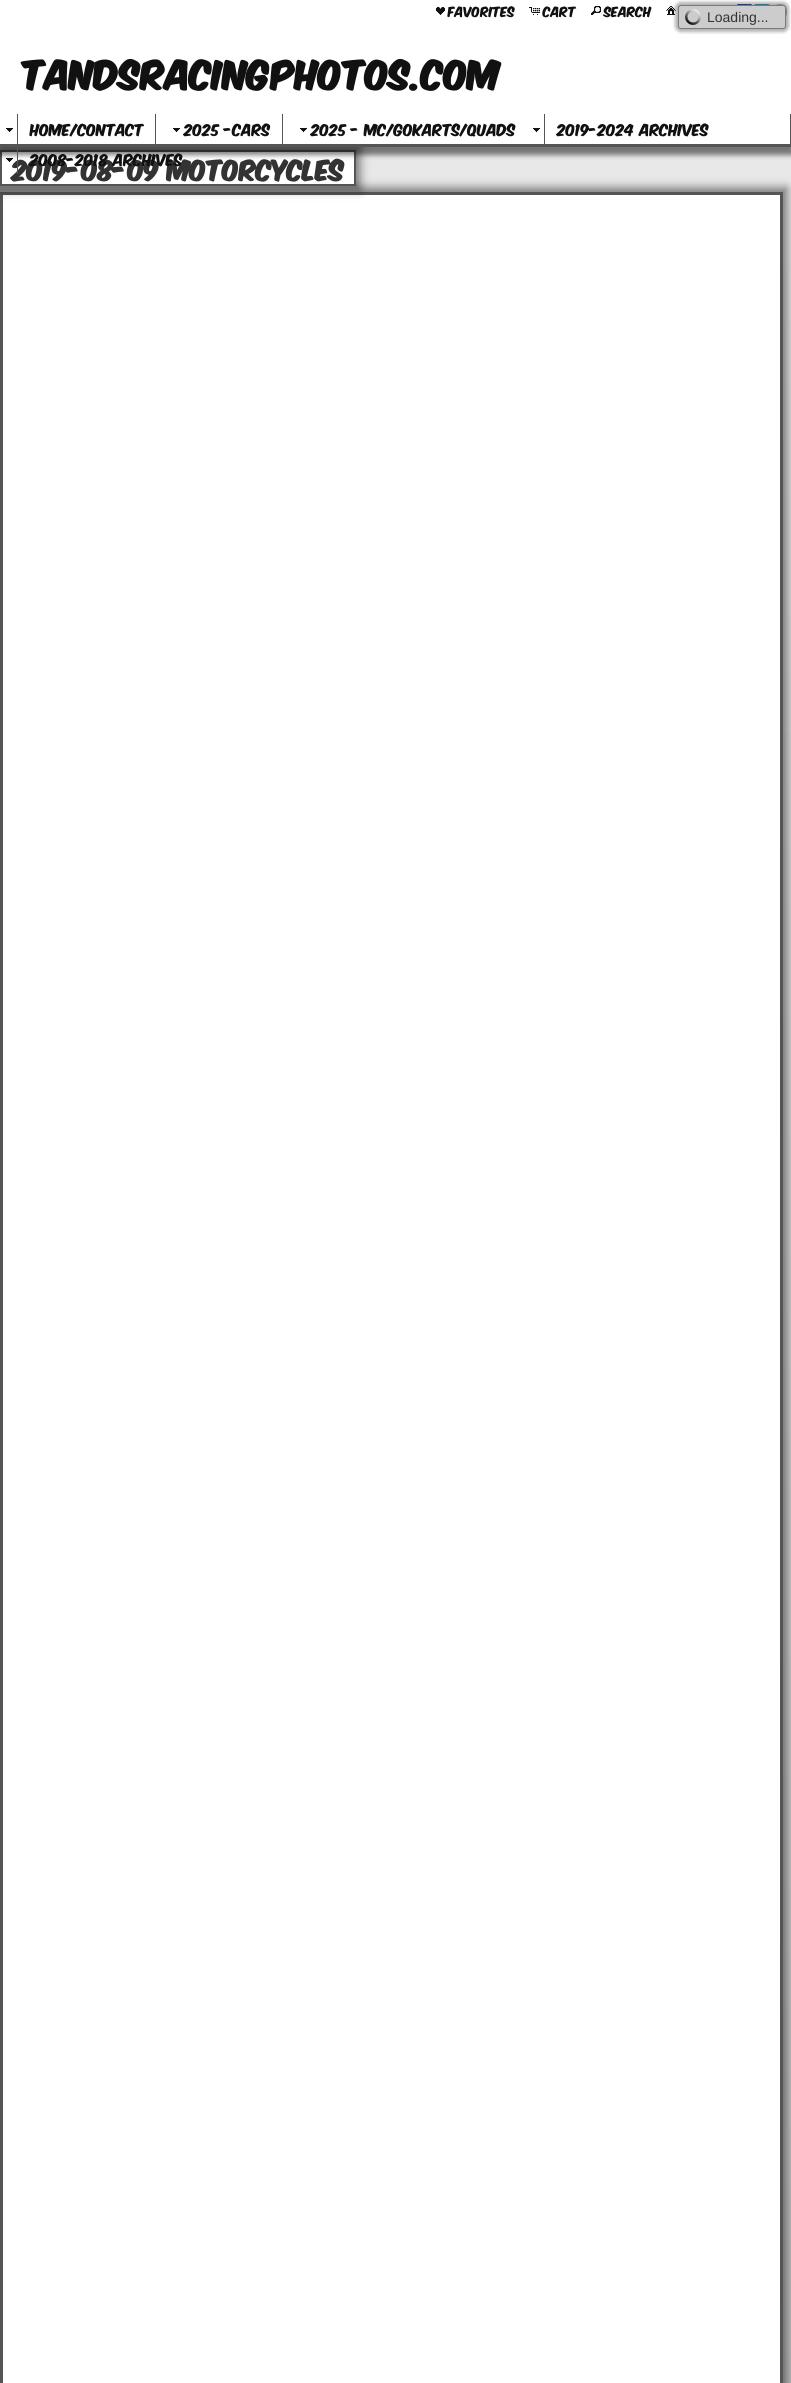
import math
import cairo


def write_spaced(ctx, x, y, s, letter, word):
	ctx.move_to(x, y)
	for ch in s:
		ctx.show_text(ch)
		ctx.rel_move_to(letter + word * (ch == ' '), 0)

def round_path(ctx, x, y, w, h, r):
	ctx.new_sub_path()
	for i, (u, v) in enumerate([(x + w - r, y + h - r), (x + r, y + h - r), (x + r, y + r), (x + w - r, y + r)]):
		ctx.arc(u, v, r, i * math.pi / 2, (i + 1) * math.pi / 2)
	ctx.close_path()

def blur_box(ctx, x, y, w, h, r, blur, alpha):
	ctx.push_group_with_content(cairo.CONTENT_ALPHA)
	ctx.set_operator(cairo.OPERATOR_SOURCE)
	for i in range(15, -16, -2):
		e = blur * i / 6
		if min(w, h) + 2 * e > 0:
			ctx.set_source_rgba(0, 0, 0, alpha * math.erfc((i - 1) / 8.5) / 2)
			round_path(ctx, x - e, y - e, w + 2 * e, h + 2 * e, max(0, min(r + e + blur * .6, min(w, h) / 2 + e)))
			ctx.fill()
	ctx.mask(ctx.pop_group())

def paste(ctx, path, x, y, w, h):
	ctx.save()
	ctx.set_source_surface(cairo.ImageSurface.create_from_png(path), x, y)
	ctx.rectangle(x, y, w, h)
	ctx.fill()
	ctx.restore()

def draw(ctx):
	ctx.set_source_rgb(1, 1, 1)
	ctx.paint()
	gradient = cairo.LinearGradient(395, 0, 396, 2383)
	gradient.add_color_stop_rgba(0, 0.922, 0.922, 0.922, 1)
	gradient.add_color_stop_rgba(1, 0.761, 0.761, 0.761, 1)
	ctx.set_source(gradient)
	ctx.rectangle(0, 147, 791, 2236)
	ctx.fill()
	ctx.set_source_rgb(0, 0, 0)
	blur_box(ctx, -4, 188, 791, 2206, 0, 5, 0.5)
	ctx.set_source_rgb(1, 1, 1)
	ctx.rectangle(3, 195, 777, 2188)
	ctx.fill()
	ctx.set_source_rgb(0.333, 0.333, 0.333)
	ctx.rectangle(0, 192, 783, 3)
	ctx.rectangle(0, 192, 3, 2191)
	ctx.fill()
	ctx.set_source_rgb(0, 0, 0)
	blur_box(ctx, -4, 146, 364, 44, 0, 5, 0.5)
	ctx.set_source_rgb(1, 1, 1)
	ctx.rectangle(1, 151, 354, 34)
	ctx.fill_preserve()
	ctx.set_source_rgb(0.333, 0.333, 0.333)
	ctx.stroke()
	ctx.set_source_rgb(0, 0, 0)
	blur_box(ctx, -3, 2, 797, 153, 0, 2.5, 0.5)
	ctx.set_source_rgb(1, 1, 1)
	ctx.rectangle(0, 0, 791, 144)
	ctx.fill()
	ctx.set_source_rgb(0.333, 0.333, 0.333)
	ctx.rectangle(0, 144, 791, 3)
	ctx.fill()
	paste(ctx, 'media/1.png', 436, 7, 9, 8)
	ctx.select_font_face('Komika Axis')
	ctx.set_font_size(12)
	ctx.set_source_rgb(0.067, 0.067, 0.067)
	ctx.move_to(448, 17)
	ctx.show_text('Favorites')
	paste(ctx, 'media/2.png', 529, 7, 11, 8)
	ctx.move_to(543, 17)
	ctx.show_text('Cart')
	paste(ctx, 'media/3.png', 591, 6, 10, 9)
	ctx.move_to(604, 17)
	ctx.show_text('Search')
	paste(ctx, 'media/4.png', 666, 6, 10, 9)
	paste(ctx, 'media/5.png', 737, 4, 50, 13)
	ctx.select_font_face('Komika Axis', cairo.FONT_SLANT_NORMAL, cairo.FONT_WEIGHT_BOLD)
	ctx.set_font_size(34)
	write_spaced(ctx, 22, 90, 'TANDSRACINGPHOTOS.COM', 0.4, 0)
	ctx.set_source_rgb(0.333, 0.333, 0.333)
	ctx.rectangle(790, 114, 1, 30)
	ctx.fill()
	paste(ctx, 'media/6.png', 6, 128, 7, 4)
	ctx.set_font_size(24)
	ctx.set_source_rgb(0.2, 0.2, 0.2)
	ctx.move_to(12, 181)
	ctx.show_text('2019-08-09 Motorcycles')
	ctx.set_source_rgb(0.333, 0.333, 0.333)
	ctx.rectangle(17, 114, 1, 60)
	ctx.fill()
	ctx.select_font_face('Komika Axis')
	ctx.set_font_size(14)
	ctx.set_source_rgb(0.067, 0.067, 0.067)
	ctx.move_to(30, 136)
	ctx.show_text('Home/Contact')
	ctx.set_source_rgb(0.333, 0.333, 0.333)
	ctx.rectangle(155, 114, 1, 30)
	ctx.fill()
	paste(ctx, 'media/6.png', 173, 128, 7, 4)
	ctx.set_source_rgb(0.067, 0.067, 0.067)
	ctx.move_to(184, 136)
	ctx.show_text('2025 -Cars')
	ctx.set_source_rgb(0.333, 0.333, 0.333)
	ctx.rectangle(282, 114, 1, 30)
	ctx.fill()
	paste(ctx, 'media/6.png', 300, 128, 7, 4)
	ctx.set_source_rgb(0.067, 0.067, 0.067)
	ctx.move_to(311, 136)
	ctx.show_text('2025 - MC/GoKarts/Quads')
	paste(ctx, 'media/6.png', 533, 128, 7, 4)
	ctx.set_source_rgb(0.333, 0.333, 0.333)
	ctx.rectangle(544, 114, 1, 30)
	ctx.fill()
	ctx.set_source_rgb(0.067, 0.067, 0.067)
	ctx.move_to(557, 136)
	ctx.show_text('2019-2024 Archives')
	paste(ctx, 'media/7.png', 6, 158, 7, 4)
	ctx.move_to(30, 166)
	ctx.show_text('2008-2018 Archives')
	ctx.set_source_rgb(0.333, 0.333, 0.333)
	ctx.rectangle(780, 192, 3, 2191)
	ctx.fill()
	ctx.set_source_rgb(0, 0, 0)
	blur_box(ctx, 675, 2, 114, 30, 6, 1.5, 0.3)
	ctx.set_source_rgb(0.8, 0.8, 0.8)
	round_path(ctx, 678.5, 5.5, 107, 23, 2.5)
	ctx.fill_preserve()
	ctx.set_source_rgb(0.478, 0.478, 0.478)
	ctx.set_line_width(1)
	ctx.stroke()
	paste(ctx, 'media/8.png', 685, 9, 16, 16)
	ctx.select_font_face('Liberation Sans')
	ctx.set_source_rgb(0.2, 0.2, 0.2)
	ctx.move_to(707, 22)
	ctx.show_text('Loading...')


surface = cairo.ImageSurface(cairo.FORMAT_RGB24, 791, 2383)
ctx = cairo.Context(surface)
options = cairo.FontOptions()
options.set_hint_metrics(cairo.HINT_METRICS_OFF)
options.set_hint_style(cairo.HINT_STYLE_NONE)
ctx.set_font_options(options)
ctx.set_miter_limit(4)
draw(ctx)
surface.write_to_png('image.png')
